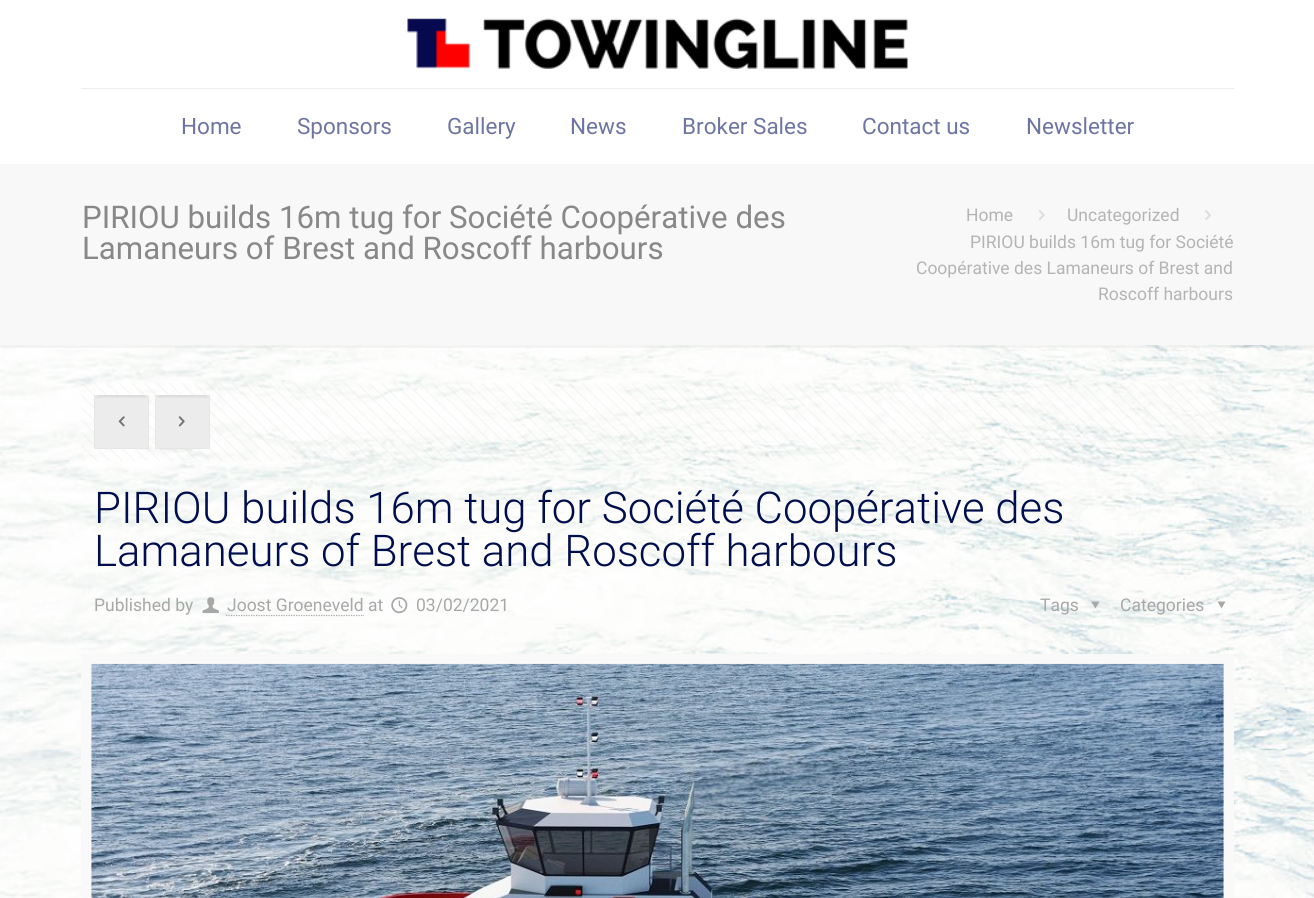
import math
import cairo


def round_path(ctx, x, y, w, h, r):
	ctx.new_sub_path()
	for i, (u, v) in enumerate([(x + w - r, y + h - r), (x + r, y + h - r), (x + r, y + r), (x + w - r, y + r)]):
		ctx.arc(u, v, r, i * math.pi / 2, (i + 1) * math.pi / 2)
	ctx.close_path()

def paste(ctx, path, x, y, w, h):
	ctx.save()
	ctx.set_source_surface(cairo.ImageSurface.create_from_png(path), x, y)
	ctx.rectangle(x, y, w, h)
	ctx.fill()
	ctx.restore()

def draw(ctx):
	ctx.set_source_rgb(1, 1, 1)
	ctx.paint()
	paste(ctx, 'media/1.png', 0, 345, 1314, 553)
	ctx.set_source_rgb(0.922, 0.922, 0.922)
	ctx.rectangle(81, 88, 1153, 1)
	ctx.fill()
	paste(ctx, 'media/2.png', 407, 18, 501, 51)
	ctx.select_font_face('Roboto')
	ctx.set_font_size(22.5)
	ctx.set_source_rgb(0.431, 0.459, 0.639)
	for x, y, s in [
		(181, 134, 'Home'),
		(297, 134, 'Sponsors'),
		(447, 134, 'Gallery'),
		(570, 134, 'News'),
		(682, 134, 'Broker Sales'),
		(862, 134, 'Contact us'),
		(1026, 134, 'Newsletter'),
	]:
		ctx.move_to(x, y)
		ctx.show_text(s)
	ctx.set_source_rgb(0.969, 0.969, 0.969)
	ctx.rectangle(0, 164, 1314, 181)
	ctx.fill()
	ctx.set_font_size(31.25)
	ctx.set_source_rgb(0.533, 0.533, 0.533)
	ctx.move_to(82, 228)
	ctx.show_text('PIRIOU builds 16m tug for Société Coopérative des')
	ctx.move_to(82, 259)
	ctx.show_text('Lamaneurs of Brest and Roscoff harbours')
	ctx.set_font_size(17.5)
	ctx.set_source_rgb(0.706, 0.706, 0.706)
	ctx.move_to(966, 221)
	ctx.show_text('Home')
	paste(ctx, 'media/3.png', 1039, 210, 6, 10)
	ctx.move_to(1067, 221)
	ctx.show_text('Uncategorized')
	paste(ctx, 'media/4.png', 1205, 210, 6, 10)
	for x, y, s in [
		(970, 248, 'PIRIOU builds 16m tug for Société'),
		(916, 274, 'Coopérative des Lamaneurs of Brest and'),
		(1098, 300, 'Roscoff harbours'),
	]:
		ctx.move_to(x, y)
		ctx.show_text(s)
	ctx.set_source_rgba(0, 0, 0, 0.04)
	ctx.rectangle(0, 345, 1314, 3)
	ctx.fill()
	paste(ctx, 'media/5.png', 81, 383, 1153, 78)
	ctx.set_source_rgb(0.969, 0.969, 0.969)
	round_path(ctx, 94, 395, 55, 54, 6)
	ctx.fill()
	paste(ctx, 'media/6.png', 95, 395, 52, 3)
	ctx.rectangle(94.5, 395.5, 54, 53)
	ctx.set_source_rgba(0, 0, 0, 0.03)
	ctx.set_line_width(1)
	ctx.stroke()
	ctx.set_source_rgba(0, 0, 0, 0.05)
	ctx.rectangle(94, 395, 55, 54)
	ctx.fill()
	paste(ctx, 'media/7.png', 118, 416, 7, 11)
	ctx.set_source_rgb(0.969, 0.969, 0.969)
	round_path(ctx, 155, 395, 55, 54, 6)
	ctx.fill()
	paste(ctx, 'media/8.png', 156, 395, 53, 3)
	ctx.rectangle(155.5, 395.5, 54, 53)
	ctx.set_source_rgba(0, 0, 0, 0.03)
	ctx.stroke()
	ctx.set_source_rgba(0, 0, 0, 0.05)
	ctx.rectangle(155, 395, 55, 54)
	ctx.fill()
	paste(ctx, 'media/9.png', 178, 416, 7, 11)
	ctx.select_font_face('Roboto Light')
	ctx.set_font_size(43.75)
	ctx.set_source_rgb(0.004, 0.055, 0.306)
	ctx.move_to(94, 523)
	ctx.show_text('PIRIOU builds 16m tug for Société Coopérative des')
	ctx.move_to(94, 566)
	ctx.show_text('Lamaneurs of Brest and Roscoff harbours')
	ctx.select_font_face('Roboto')
	ctx.set_font_size(17.5)
	ctx.set_source_rgb(0.659, 0.659, 0.659)
	ctx.move_to(94, 611)
	ctx.show_text('Published by')
	paste(ctx, 'media/10.png', 202, 597, 17, 16)
	ctx.move_to(227, 611)
	ctx.show_text('Joost Groeneveld at')
	ctx.new_path()
	ctx.move_to(226, 615.5)
	ctx.line_to(364, 615.5)
	ctx.set_line_width(1.2)
	ctx.set_dash([1.25, 1.25])
	ctx.stroke()
	paste(ctx, 'media/11.png', 391, 597, 17, 17)
	ctx.move_to(416, 611)
	ctx.show_text('03/02/2021')
	ctx.move_to(1040, 611)
	ctx.show_text('Tags')
	ctx.new_path()
	ctx.move_to(1099.5, 601.5)
	ctx.line_to(1095.5, 608.5)
	ctx.line_to(1091, 601.5)
	ctx.close_path()
	ctx.fill()
	ctx.move_to(1120, 611)
	ctx.show_text('Categories')
	ctx.new_path()
	ctx.move_to(1225.5, 601.5)
	ctx.line_to(1221.5, 608.5)
	ctx.line_to(1217.5, 601.5)
	ctx.close_path()
	ctx.fill()
	ctx.rectangle(86, 659, 1143, 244)
	ctx.set_source_rgb(0.973, 0.973, 0.973)
	ctx.set_line_width(10)
	ctx.set_dash([])
	ctx.stroke()
	paste(ctx, 'media/12.png', 91, 663, 1133, 235)


surface = cairo.ImageSurface(cairo.FORMAT_RGB24, 1314, 898)
ctx = cairo.Context(surface)
options = cairo.FontOptions()
options.set_hint_metrics(cairo.HINT_METRICS_OFF)
options.set_hint_style(cairo.HINT_STYLE_NONE)
ctx.set_font_options(options)
ctx.set_miter_limit(4)
draw(ctx)
surface.write_to_png('image.png')
